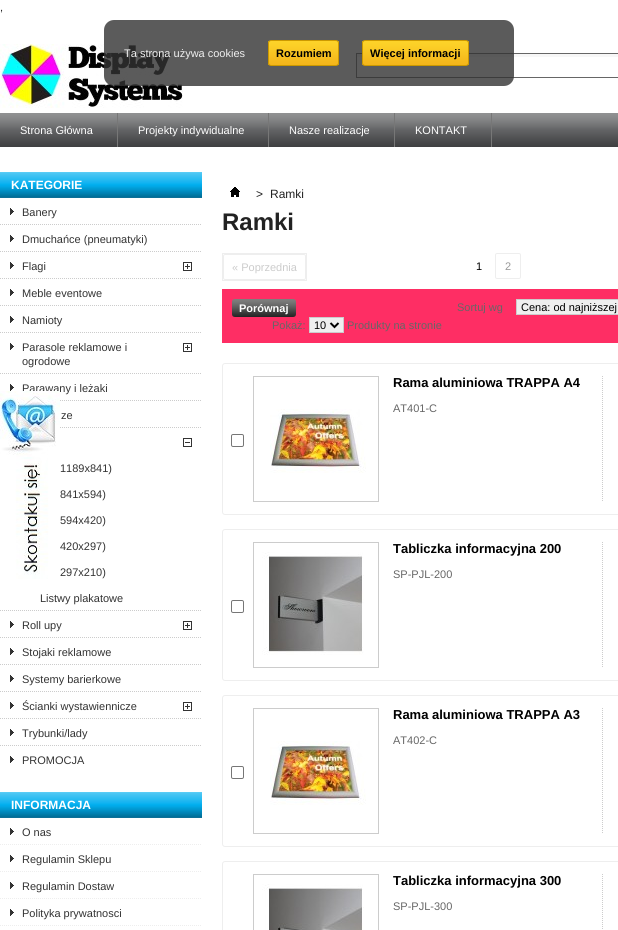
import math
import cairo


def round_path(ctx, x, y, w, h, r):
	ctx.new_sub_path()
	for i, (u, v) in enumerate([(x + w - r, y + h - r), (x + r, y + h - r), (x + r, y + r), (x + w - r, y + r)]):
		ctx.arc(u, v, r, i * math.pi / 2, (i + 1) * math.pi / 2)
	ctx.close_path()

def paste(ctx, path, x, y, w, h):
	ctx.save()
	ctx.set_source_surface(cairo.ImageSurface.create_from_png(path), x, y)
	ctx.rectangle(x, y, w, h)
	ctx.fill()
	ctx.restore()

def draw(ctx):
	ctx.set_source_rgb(1, 1, 1)
	ctx.paint()
	ctx.select_font_face('Liberation Sans')
	ctx.set_font_size(11)
	ctx.set_source_rgb(0.133, 0.133, 0.133)
	ctx.move_to(0, 11)
	ctx.show_text(',')
	paste(ctx, 'media/1.png', 0, 44, 183, 64)
	ctx.set_source_rgb(0.965, 0.965, 0.965)
	ctx.rectangle(356, 54, 262, 3)
	ctx.fill()
	ctx.set_source_rgb(0.4, 0.4, 0.4)
	ctx.rectangle(356, 53, 262, 1)
	ctx.rectangle(356, 77, 262, 1)
	ctx.rectangle(356, 53, 1, 25)
	ctx.fill()
	ctx.set_source_rgba(0.2, 0.2, 0.2, 0.8)
	round_path(ctx, 104, 20, 410, 66, 10)
	ctx.fill()
	ctx.set_source_rgb(0.941, 0.941, 0.941)
	ctx.move_to(124, 57)
	ctx.show_text('Ta strona używa cookies')
	paste(ctx, 'media/2.png', 268, 41, 71, 24)
	round_path(ctx, 268.5, 40.5, 70, 25, 2.5)
	ctx.set_source_rgb(0.8, 0.6, 0)
	ctx.set_line_width(1)
	ctx.stroke()
	ctx.select_font_face('Liberation Sans', cairo.FONT_SLANT_NORMAL, cairo.FONT_WEIGHT_BOLD)
	ctx.set_source_rgb(0, 0, 0)
	ctx.move_to(276, 57)
	ctx.show_text('Rozumiem')
	paste(ctx, 'media/3.png', 362, 41, 107, 24)
	round_path(ctx, 362.5, 40.5, 106, 25, 2.5)
	ctx.set_source_rgb(0.8, 0.6, 0)
	ctx.stroke()
	ctx.set_source_rgb(0, 0, 0)
	ctx.move_to(370, 57)
	ctx.show_text('Więcej informacji')
	paste(ctx, 'media/4.png', 0, 113, 618, 34)
	ctx.set_source_rgb(0.467, 0.467, 0.467)
	ctx.rectangle(117, 113, 1, 34)
	ctx.fill()
	ctx.select_font_face('Liberation Sans')
	ctx.set_source_rgb(1, 1, 1)
	ctx.move_to(20, 134)
	ctx.show_text('Strona Główna')
	ctx.set_source_rgb(0.467, 0.467, 0.467)
	ctx.rectangle(268, 113, 1, 34)
	ctx.fill()
	ctx.set_source_rgb(1, 1, 1)
	ctx.move_to(138, 134)
	ctx.show_text('Projekty indywidualne')
	ctx.set_source_rgb(0.467, 0.467, 0.467)
	ctx.rectangle(394, 113, 1, 34)
	ctx.fill()
	ctx.set_source_rgb(1, 1, 1)
	ctx.move_to(289, 134)
	ctx.show_text('Nasze realizacje')
	ctx.set_source_rgb(0.467, 0.467, 0.467)
	ctx.rectangle(491, 113, 1, 34)
	ctx.fill()
	ctx.set_source_rgb(1, 1, 1)
	ctx.move_to(415, 134)
	ctx.show_text('KONTAKT')
	paste(ctx, 'media/5.png', 0, 172, 202, 26)
	ctx.select_font_face('Liberation Sans', cairo.FONT_SLANT_NORMAL, cairo.FONT_WEIGHT_BOLD)
	ctx.set_font_size(12)
	ctx.move_to(11, 189)
	ctx.show_text('KATEGORIE')
	ctx.new_path()
	ctx.move_to(0, 224.5)
	ctx.line_to(202, 224.5)
	ctx.set_source_rgb(0.8, 0.8, 0.8)
	ctx.set_dash([1, 1])
	ctx.stroke()
	paste(ctx, 'media/6.png', 10, 208, 4, 7)
	ctx.select_font_face('Liberation Sans')
	ctx.set_font_size(11)
	ctx.set_source_rgb(0.2, 0.2, 0.2)
	ctx.move_to(22, 216)
	ctx.show_text('Banery')
	ctx.new_path()
	ctx.move_to(0, 251.5)
	ctx.line_to(202, 251.5)
	ctx.set_source_rgb(0.8, 0.8, 0.8)
	ctx.stroke()
	paste(ctx, 'media/6.png', 10, 235, 4, 7)
	ctx.set_source_rgb(0.2, 0.2, 0.2)
	ctx.move_to(22, 243)
	ctx.show_text('Dmuchańce (pneumatyki)')
	ctx.new_path()
	ctx.move_to(0, 278.5)
	ctx.line_to(202, 278.5)
	ctx.set_source_rgb(0.8, 0.8, 0.8)
	ctx.stroke()
	paste(ctx, 'media/6.png', 10, 262, 4, 7)
	ctx.set_source_rgb(0.2, 0.2, 0.2)
	ctx.move_to(22, 270)
	ctx.show_text('Flagi')
	paste(ctx, 'media/7.png', 183, 262, 9, 9)
	ctx.new_path()
	ctx.move_to(0, 305.5)
	ctx.line_to(202, 305.5)
	ctx.set_source_rgb(0.8, 0.8, 0.8)
	ctx.stroke()
	paste(ctx, 'media/6.png', 10, 289, 4, 7)
	ctx.set_source_rgb(0.2, 0.2, 0.2)
	ctx.move_to(22, 297)
	ctx.show_text('Meble eventowe')
	ctx.new_path()
	ctx.move_to(0, 332.5)
	ctx.line_to(202, 332.5)
	ctx.set_source_rgb(0.8, 0.8, 0.8)
	ctx.stroke()
	paste(ctx, 'media/6.png', 10, 316, 4, 7)
	ctx.set_source_rgb(0.2, 0.2, 0.2)
	ctx.move_to(22, 324)
	ctx.show_text('Namioty')
	ctx.new_path()
	ctx.move_to(0, 373.5)
	ctx.line_to(202, 373.5)
	ctx.set_source_rgb(0.8, 0.8, 0.8)
	ctx.stroke()
	paste(ctx, 'media/6.png', 10, 343, 4, 7)
	ctx.set_source_rgb(0.2, 0.2, 0.2)
	ctx.move_to(22, 351)
	ctx.show_text('Parasole reklamowe i')
	ctx.move_to(22, 365)
	ctx.show_text('ogrodowe')
	paste(ctx, 'media/7.png', 183, 343, 9, 9)
	ctx.new_path()
	ctx.move_to(0, 400.5)
	ctx.line_to(202, 400.5)
	ctx.set_source_rgb(0.8, 0.8, 0.8)
	ctx.stroke()
	paste(ctx, 'media/6.png', 10, 384, 4, 7)
	ctx.set_source_rgb(0.2, 0.2, 0.2)
	ctx.move_to(22, 392)
	ctx.show_text('Parawany i leżaki')
	ctx.new_path()
	ctx.move_to(0, 427.5)
	ctx.line_to(202, 427.5)
	ctx.set_source_rgb(0.8, 0.8, 0.8)
	ctx.stroke()
	ctx.set_source_rgb(0.2, 0.2, 0.2)
	ctx.move_to(61, 419)
	ctx.show_text('ze')
	ctx.new_path()
	ctx.move_to(0, 610.5)
	ctx.line_to(202, 610.5)
	ctx.set_source_rgb(0.8, 0.8, 0.8)
	ctx.stroke()
	paste(ctx, 'media/8.png', 183, 438, 9, 9)
	ctx.set_source_rgb(0.2, 0.2, 0.2)
	for x, y, s in [
		(60, 472, '1189x841)'),
		(60, 498, '841x594)'),
		(60, 524, '594x420)'),
		(60, 550, '420x297)'),
		(60, 576, '297x210)'),
		(40, 602, 'Listwy plakatowe'),
	]:
		ctx.move_to(x, y)
		ctx.show_text(s)
	ctx.new_path()
	ctx.move_to(0, 637.5)
	ctx.line_to(202, 637.5)
	ctx.set_source_rgb(0.8, 0.8, 0.8)
	ctx.stroke()
	paste(ctx, 'media/6.png', 10, 621, 4, 7)
	ctx.set_source_rgb(0.2, 0.2, 0.2)
	ctx.move_to(22, 629)
	ctx.show_text('Roll upy')
	paste(ctx, 'media/7.png', 183, 621, 9, 9)
	ctx.new_path()
	ctx.move_to(0, 664.5)
	ctx.line_to(202, 664.5)
	ctx.set_source_rgb(0.8, 0.8, 0.8)
	ctx.stroke()
	paste(ctx, 'media/6.png', 10, 648, 4, 7)
	ctx.set_source_rgb(0.2, 0.2, 0.2)
	ctx.move_to(22, 656)
	ctx.show_text('Stojaki reklamowe')
	ctx.new_path()
	ctx.move_to(0, 691.5)
	ctx.line_to(202, 691.5)
	ctx.set_source_rgb(0.8, 0.8, 0.8)
	ctx.stroke()
	paste(ctx, 'media/6.png', 10, 675, 4, 7)
	ctx.set_source_rgb(0.2, 0.2, 0.2)
	ctx.move_to(22, 683)
	ctx.show_text('Systemy barierkowe')
	ctx.new_path()
	ctx.move_to(0, 718.5)
	ctx.line_to(202, 718.5)
	ctx.set_source_rgb(0.8, 0.8, 0.8)
	ctx.stroke()
	paste(ctx, 'media/6.png', 10, 702, 4, 7)
	ctx.set_source_rgb(0.2, 0.2, 0.2)
	ctx.move_to(22, 710)
	ctx.show_text('Ścianki wystawiennicze')
	paste(ctx, 'media/7.png', 183, 702, 9, 9)
	ctx.new_path()
	ctx.move_to(0, 745.5)
	ctx.line_to(202, 745.5)
	ctx.set_source_rgb(0.8, 0.8, 0.8)
	ctx.stroke()
	paste(ctx, 'media/6.png', 10, 729, 4, 7)
	ctx.set_source_rgb(0.2, 0.2, 0.2)
	ctx.move_to(22, 737)
	ctx.show_text('Trybunki/lady')
	paste(ctx, 'media/6.png', 10, 756, 4, 7)
	ctx.move_to(22, 764)
	ctx.show_text('PROMOCJA')
	paste(ctx, 'media/5.png', 0, 792, 202, 26)
	ctx.select_font_face('Liberation Sans', cairo.FONT_SLANT_NORMAL, cairo.FONT_WEIGHT_BOLD)
	ctx.set_font_size(12)
	ctx.set_source_rgb(1, 1, 1)
	ctx.move_to(11, 809)
	ctx.show_text('INFORMACJA')
	ctx.new_path()
	ctx.move_to(0, 844.5)
	ctx.line_to(202, 844.5)
	ctx.set_source_rgb(0.933, 0.933, 0.933)
	ctx.stroke()
	paste(ctx, 'media/6.png', 10, 828, 4, 7)
	ctx.select_font_face('Liberation Sans')
	ctx.set_font_size(11)
	ctx.set_source_rgb(0.2, 0.2, 0.2)
	ctx.move_to(22, 836)
	ctx.show_text('O nas')
	ctx.new_path()
	ctx.move_to(0, 871.5)
	ctx.line_to(202, 871.5)
	ctx.set_source_rgb(0.933, 0.933, 0.933)
	ctx.stroke()
	paste(ctx, 'media/6.png', 10, 855, 4, 7)
	ctx.set_source_rgb(0.2, 0.2, 0.2)
	ctx.move_to(22, 863)
	ctx.show_text('Regulamin Sklepu')
	ctx.new_path()
	ctx.move_to(0, 898.5)
	ctx.line_to(202, 898.5)
	ctx.set_source_rgb(0.933, 0.933, 0.933)
	ctx.stroke()
	paste(ctx, 'media/6.png', 10, 882, 4, 7)
	ctx.set_source_rgb(0.2, 0.2, 0.2)
	ctx.move_to(22, 890)
	ctx.show_text('Regulamin Dostaw')
	ctx.new_path()
	ctx.move_to(0, 925.5)
	ctx.line_to(202, 925.5)
	ctx.set_source_rgb(0.933, 0.933, 0.933)
	ctx.stroke()
	paste(ctx, 'media/6.png', 10, 909, 4, 7)
	ctx.set_source_rgb(0.2, 0.2, 0.2)
	ctx.move_to(22, 917)
	ctx.show_text('Polityka prywatnosci')
	paste(ctx, 'media/9.png', 230, 187, 10, 10)
	ctx.set_font_size(12)
	ctx.set_source_rgb(0.133, 0.133, 0.133)
	ctx.move_to(256, 198)
	ctx.show_text('>')
	ctx.move_to(270, 198)
	ctx.show_text('Ramki')
	ctx.select_font_face('Liberation Sans', cairo.FONT_SLANT_NORMAL, cairo.FONT_WEIGHT_BOLD)
	ctx.set_font_size(24)
	ctx.move_to(222, 230)
	ctx.show_text('Ramki')
	ctx.rectangle(222.5, 253.5, 84, 27)
	ctx.set_source_rgb(0.933, 0.933, 0.933)
	ctx.set_dash([])
	ctx.stroke()
	round_path(ctx, 223.5, 254.5, 82, 25, 1.5)
	ctx.stroke()
	ctx.select_font_face('Liberation Sans')
	ctx.set_font_size(11)
	ctx.set_source_rgb(0.8, 0.8, 0.8)
	ctx.move_to(232, 271)
	ctx.show_text('« Poprzednia')
	ctx.set_source_rgb(0, 0, 0)
	ctx.move_to(476, 270)
	ctx.show_text('1')
	round_path(ctx, 495.5, 253.5, 25, 25, 1.5)
	ctx.set_source_rgb(0.933, 0.933, 0.933)
	ctx.stroke()
	ctx.set_source_rgb(0.6, 0.6, 0.6)
	ctx.move_to(505, 270)
	ctx.show_text('2')
	ctx.set_source_rgb(0.996, 0.18, 0.392)
	ctx.rectangle(222, 289, 396, 54)
	ctx.fill()
	paste(ctx, 'media/10.png', 232, 299, 64, 18)
	ctx.select_font_face('Liberation Sans', cairo.FONT_SLANT_NORMAL, cairo.FONT_WEIGHT_BOLD)
	ctx.set_source_rgb(1, 1, 1)
	ctx.move_to(239, 312)
	ctx.show_text('Porównaj')
	ctx.select_font_face('Liberation Sans')
	ctx.set_source_rgb(0.4, 0.4, 0.4)
	ctx.move_to(457, 311)
	ctx.show_text('Sortuj wg')
	ctx.set_source_rgb(0.937, 0.937, 0.937)
	ctx.rectangle(516.5, 299.5, 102, 15)
	ctx.fill_preserve()
	ctx.set_source_rgb(0.8, 0.8, 0.8)
	ctx.stroke()
	ctx.set_source_rgb(0, 0, 0)
	ctx.move_to(521, 311)
	ctx.show_text('Cena: od najniższej')
	ctx.set_source_rgb(0.4, 0.4, 0.4)
	ctx.move_to(272, 329)
	ctx.show_text('Pokaż:')
	ctx.set_source_rgb(0.937, 0.937, 0.937)
	ctx.rectangle(309.5, 317.5, 34, 15)
	ctx.fill_preserve()
	ctx.set_source_rgb(0.8, 0.8, 0.8)
	ctx.stroke()
	ctx.new_path()
	ctx.move_to(330.5, 323)
	ctx.line_to(334.5, 327)
	ctx.line_to(338.5, 323)
	ctx.set_source_rgb(0, 0, 0)
	ctx.set_line_width(2)
	ctx.stroke()
	ctx.move_to(314, 329)
	ctx.show_text('10')
	ctx.set_source_rgb(0.4, 0.4, 0.4)
	ctx.move_to(347, 329)
	ctx.show_text('Produkty na stronie')
	round_path(ctx, 222.5, 363.5, 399, 151, 2.5)
	ctx.set_source_rgb(0.933, 0.933, 0.933)
	ctx.set_line_width(1)
	ctx.stroke()
	ctx.new_path()
	ctx.move_to(602.5, 376)
	ctx.line_to(602.5, 502)
	ctx.set_source_rgb(0.8, 0.8, 0.8)
	ctx.set_dash([1, 1])
	ctx.stroke()
	ctx.rectangle(253.5, 376.5, 125, 125)
	ctx.set_dash([])
	ctx.stroke()
	paste(ctx, 'media/11.png', 270, 409, 96, 64)
	ctx.select_font_face('Liberation Sans', cairo.FONT_SLANT_NORMAL, cairo.FONT_WEIGHT_BOLD)
	ctx.set_font_size(13)
	ctx.set_source_rgb(0, 0, 0)
	ctx.move_to(393, 387)
	ctx.show_text('Rama aluminiowa TRAPPA A4')
	ctx.select_font_face('Liberation Sans')
	ctx.set_font_size(11)
	ctx.set_source_rgb(0.4, 0.4, 0.4)
	ctx.move_to(393, 412)
	ctx.show_text('AT401-C')
	round_path(ctx, 231.5, 434.5, 12, 12, 1.5)
	ctx.set_source_rgb(0.463, 0.463, 0.463)
	ctx.stroke()
	round_path(ctx, 222.5, 529.5, 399, 151, 2.5)
	ctx.set_source_rgb(0.933, 0.933, 0.933)
	ctx.stroke()
	ctx.new_path()
	ctx.move_to(602.5, 542)
	ctx.line_to(602.5, 668)
	ctx.set_source_rgb(0.8, 0.8, 0.8)
	ctx.set_dash([1, 1])
	ctx.stroke()
	ctx.rectangle(253.5, 542.5, 125, 125)
	ctx.set_dash([])
	ctx.stroke()
	paste(ctx, 'media/12.png', 262, 552, 102, 103)
	ctx.select_font_face('Liberation Sans', cairo.FONT_SLANT_NORMAL, cairo.FONT_WEIGHT_BOLD)
	ctx.set_font_size(13)
	ctx.set_source_rgb(0, 0, 0)
	ctx.move_to(393, 553)
	ctx.show_text('Tabliczka informacyjna 200')
	ctx.select_font_face('Liberation Sans')
	ctx.set_font_size(11)
	ctx.set_source_rgb(0.4, 0.4, 0.4)
	ctx.move_to(393, 578)
	ctx.show_text('SP-PJL-200')
	round_path(ctx, 231.5, 600.5, 12, 12, 1.5)
	ctx.set_source_rgb(0.463, 0.463, 0.463)
	ctx.stroke()
	round_path(ctx, 222.5, 695.5, 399, 151, 2.5)
	ctx.set_source_rgb(0.933, 0.933, 0.933)
	ctx.stroke()
	ctx.new_path()
	ctx.move_to(602.5, 708)
	ctx.line_to(602.5, 834)
	ctx.set_source_rgb(0.8, 0.8, 0.8)
	ctx.set_dash([1, 1])
	ctx.stroke()
	ctx.rectangle(253.5, 708.5, 125, 125)
	ctx.set_dash([])
	ctx.stroke()
	paste(ctx, 'media/11.png', 270, 741, 96, 64)
	ctx.select_font_face('Liberation Sans', cairo.FONT_SLANT_NORMAL, cairo.FONT_WEIGHT_BOLD)
	ctx.set_font_size(13)
	ctx.set_source_rgb(0, 0, 0)
	ctx.move_to(393, 719)
	ctx.show_text('Rama aluminiowa TRAPPA A3')
	ctx.select_font_face('Liberation Sans')
	ctx.set_font_size(11)
	ctx.set_source_rgb(0.4, 0.4, 0.4)
	ctx.move_to(393, 744)
	ctx.show_text('AT402-C')
	round_path(ctx, 231.5, 766.5, 12, 12, 1.5)
	ctx.set_source_rgb(0.463, 0.463, 0.463)
	ctx.stroke()
	round_path(ctx, 222.5, 861.5, 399, 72, 2.5)
	ctx.set_source_rgb(0.933, 0.933, 0.933)
	ctx.stroke()
	ctx.new_path()
	ctx.move_to(602.5, 874)
	ctx.line_to(602.5, 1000)
	ctx.set_source_rgb(0.8, 0.8, 0.8)
	ctx.set_dash([1, 1])
	ctx.stroke()
	ctx.rectangle(253.5, 874.5, 125, 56)
	ctx.set_dash([])
	ctx.stroke()
	paste(ctx, 'media/13.png', 262, 884, 102, 46)
	ctx.select_font_face('Liberation Sans', cairo.FONT_SLANT_NORMAL, cairo.FONT_WEIGHT_BOLD)
	ctx.set_font_size(13)
	ctx.set_source_rgb(0, 0, 0)
	ctx.move_to(393, 885)
	ctx.show_text('Tabliczka informacyjna 300')
	ctx.select_font_face('Liberation Sans')
	ctx.set_font_size(11)
	ctx.set_source_rgb(0.4, 0.4, 0.4)
	ctx.move_to(393, 910)
	ctx.show_text('SP-PJL-300')
	paste(ctx, 'media/14.png', 0, 391, 60, 188)


surface = cairo.ImageSurface(cairo.FORMAT_RGB24, 618, 930)
ctx = cairo.Context(surface)
options = cairo.FontOptions()
options.set_hint_metrics(cairo.HINT_METRICS_OFF)
options.set_hint_style(cairo.HINT_STYLE_NONE)
ctx.set_font_options(options)
ctx.set_miter_limit(4)
draw(ctx)
surface.write_to_png('image.png')
